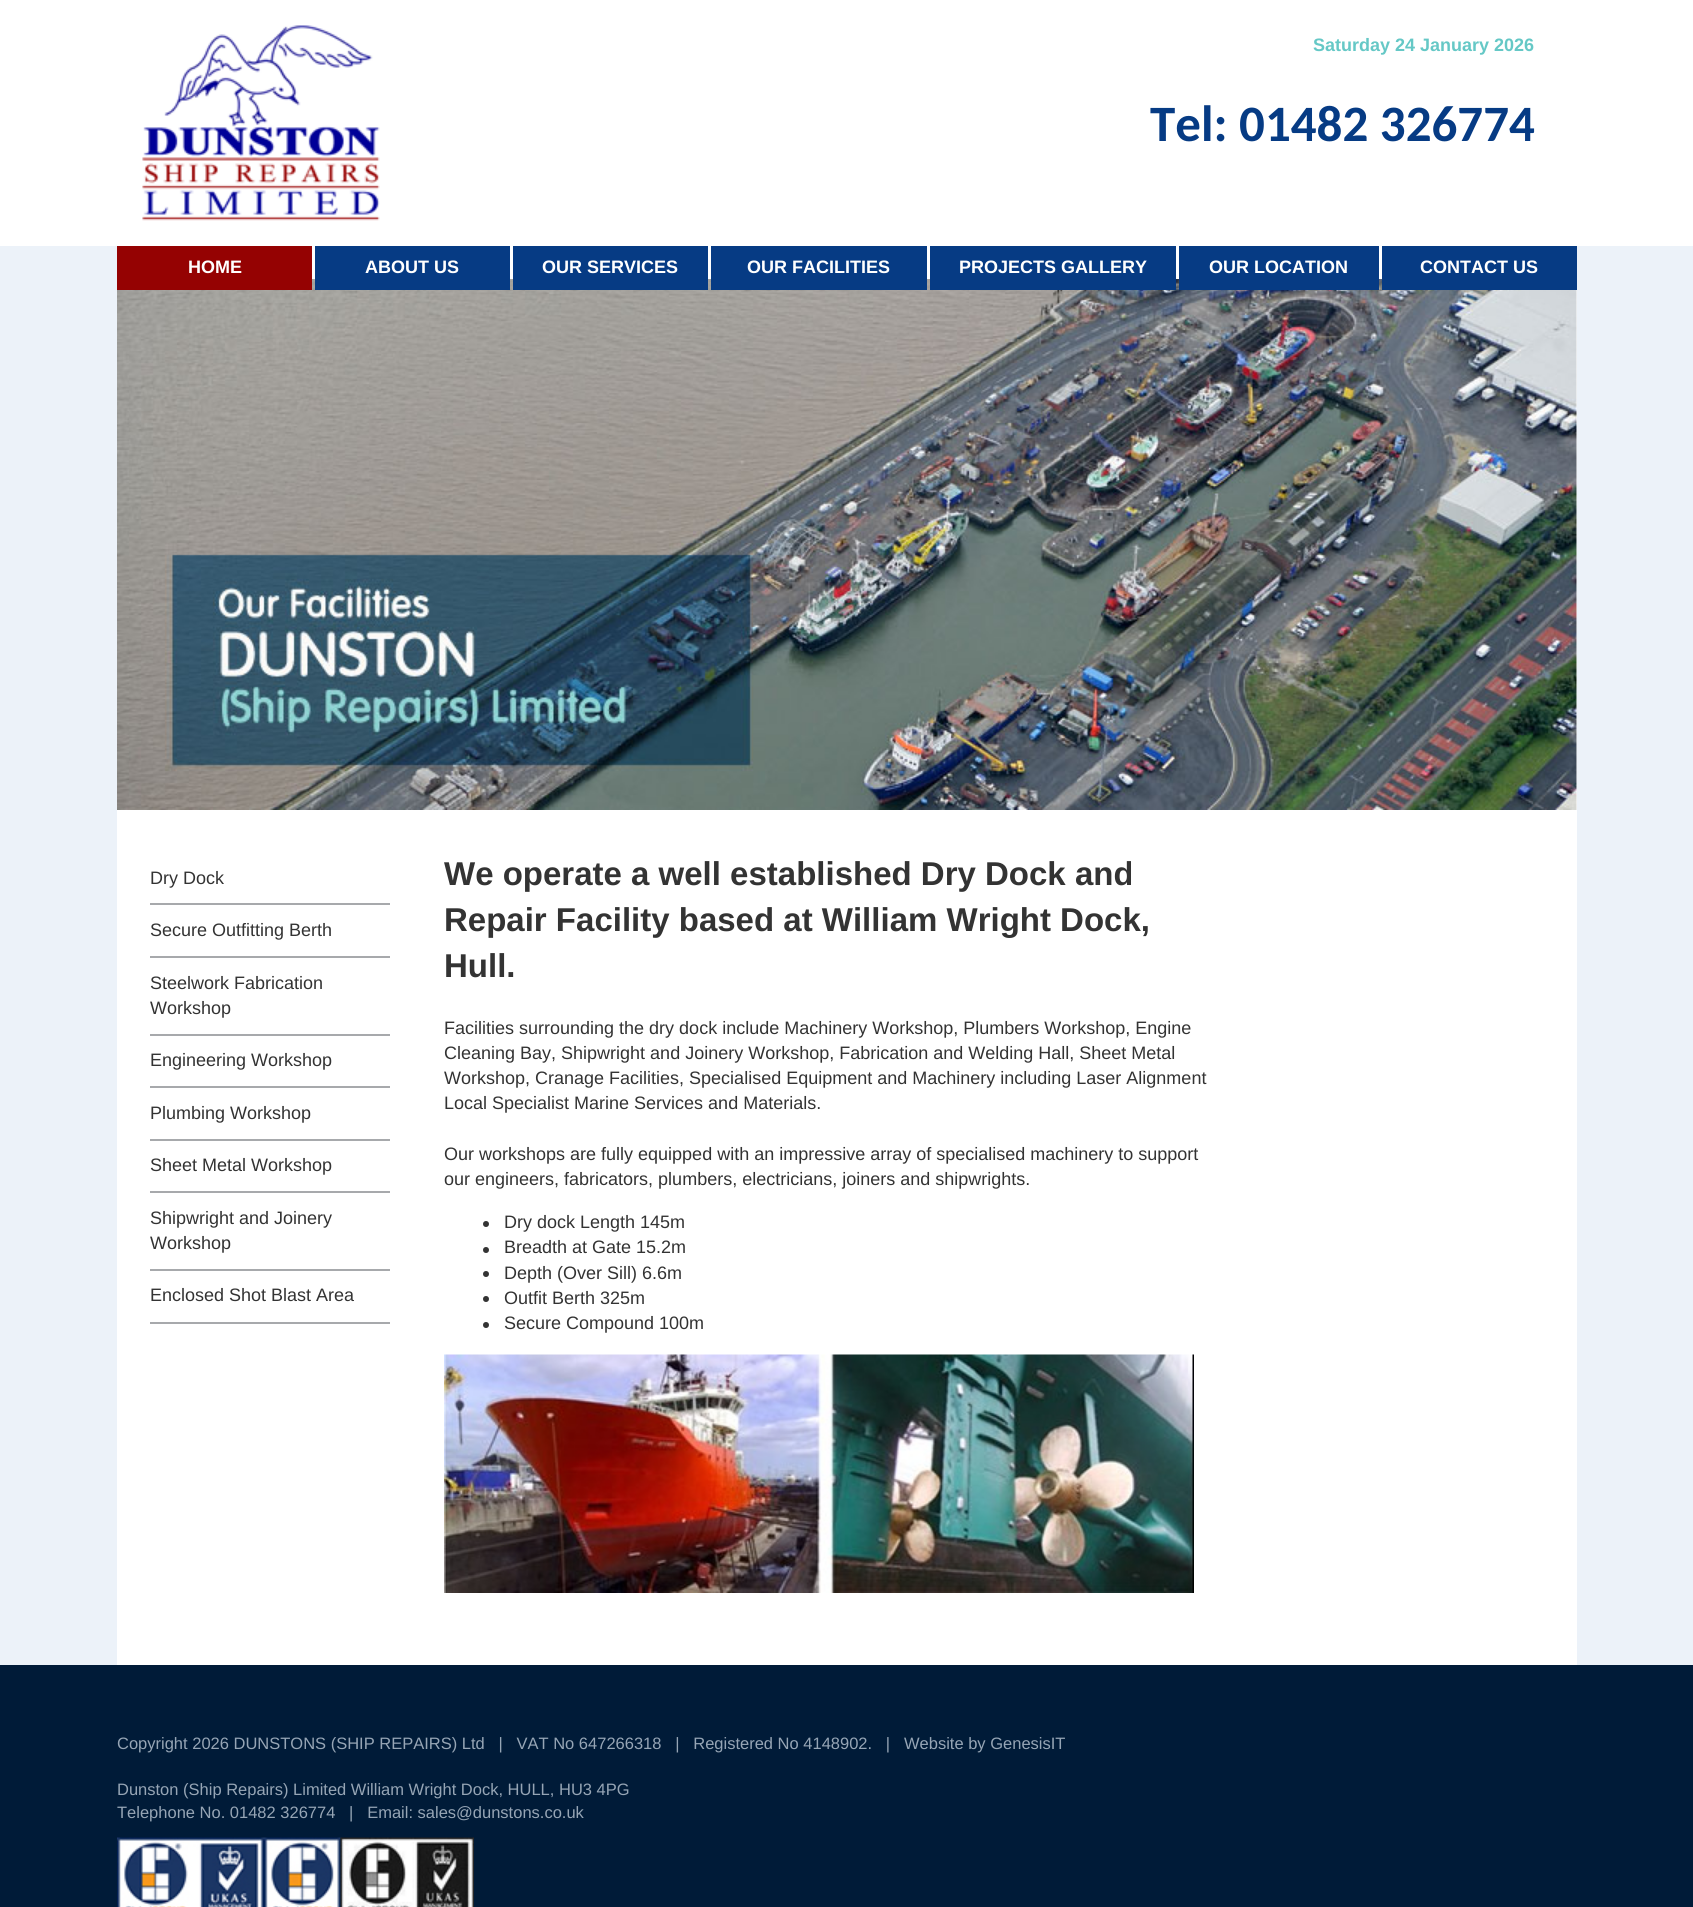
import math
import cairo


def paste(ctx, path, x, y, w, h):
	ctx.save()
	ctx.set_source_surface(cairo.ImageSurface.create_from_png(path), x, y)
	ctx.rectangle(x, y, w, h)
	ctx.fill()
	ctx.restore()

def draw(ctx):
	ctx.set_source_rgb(0, 0.106, 0.22)
	ctx.paint()
	ctx.set_source_rgb(1, 1, 1)
	ctx.rectangle(0, 0, 1693, 246)
	ctx.fill()
	paste(ctx, 'media/1.png', 142, 25, 238, 196)
	ctx.select_font_face('Liberation Sans', cairo.FONT_SLANT_NORMAL, cairo.FONT_WEIGHT_BOLD)
	ctx.set_font_size(18)
	ctx.set_source_rgb(0.396, 0.784, 0.776)
	ctx.move_to(1313, 51)
	ctx.show_text('Saturday 24 January 2026')
	ctx.select_font_face('Carlito', cairo.FONT_SLANT_NORMAL, cairo.FONT_WEIGHT_BOLD)
	ctx.set_font_size(51)
	ctx.set_source_rgb(0.027, 0.231, 0.518)
	ctx.move_to(1150, 141)
	ctx.show_text('Tel: 01482 326774')
	ctx.set_source_rgb(0.925, 0.949, 0.973)
	ctx.rectangle(0, 246, 1693, 1419)
	ctx.fill()
	ctx.set_source_rgb(1, 1, 1)
	ctx.rectangle(117, 246, 1460, 1419)
	ctx.fill()
	paste(ctx, 'media/2.png', 117, 279, 1460, 531)
	ctx.set_source_rgb(0.584, 0.008, 0.008)
	ctx.rectangle(117, 246, 195, 44)
	ctx.fill()
	ctx.select_font_face('Liberation Sans', cairo.FONT_SLANT_NORMAL, cairo.FONT_WEIGHT_BOLD)
	ctx.set_font_size(18)
	ctx.set_source_rgb(1, 1, 1)
	ctx.move_to(188, 273)
	ctx.show_text('HOME')
	ctx.set_source_rgb(0.027, 0.231, 0.518)
	ctx.rectangle(315, 246, 195, 44)
	ctx.fill()
	ctx.set_source_rgb(1, 1, 1)
	ctx.move_to(365, 273)
	ctx.show_text('ABOUT US')
	ctx.set_source_rgb(0.027, 0.231, 0.518)
	ctx.rectangle(513, 246, 195, 44)
	ctx.fill()
	ctx.set_source_rgb(1, 1, 1)
	ctx.move_to(542, 273)
	ctx.show_text('OUR SERVICES')
	ctx.set_source_rgb(0.027, 0.231, 0.518)
	ctx.rectangle(711, 246, 216, 44)
	ctx.fill()
	ctx.set_source_rgb(1, 1, 1)
	ctx.move_to(747, 273)
	ctx.show_text('OUR FACILITIES')
	ctx.set_source_rgb(0.027, 0.231, 0.518)
	ctx.rectangle(930, 246, 246, 44)
	ctx.fill()
	ctx.set_source_rgb(1, 1, 1)
	ctx.move_to(959, 273)
	ctx.show_text('PROJECTS GALLERY')
	ctx.set_source_rgb(0.027, 0.231, 0.518)
	ctx.rectangle(1179, 246, 200, 44)
	ctx.fill()
	ctx.set_source_rgb(1, 1, 1)
	ctx.move_to(1209, 273)
	ctx.show_text('OUR LOCATION')
	ctx.set_source_rgb(0.027, 0.231, 0.518)
	ctx.rectangle(1382, 246, 195, 44)
	ctx.fill()
	ctx.set_source_rgb(1, 1, 1)
	ctx.move_to(1420, 273)
	ctx.show_text('CONTACT US')
	ctx.set_source_rgb(0.655, 0.663, 0.675)
	ctx.rectangle(150, 903, 240, 2)
	ctx.fill()
	ctx.select_font_face('Liberation Sans')
	ctx.set_source_rgb(0.2, 0.2, 0.2)
	ctx.move_to(150, 884)
	ctx.show_text('Dry Dock')
	ctx.set_source_rgb(0.655, 0.663, 0.675)
	ctx.rectangle(150, 956, 240, 2)
	ctx.fill()
	ctx.set_source_rgb(0.2, 0.2, 0.2)
	ctx.move_to(150, 936)
	ctx.show_text('Secure Outfitting Berth')
	ctx.set_source_rgb(0.655, 0.663, 0.675)
	ctx.rectangle(150, 1034, 240, 2)
	ctx.fill()
	ctx.set_source_rgb(0.2, 0.2, 0.2)
	ctx.move_to(150, 989)
	ctx.show_text('Steelwork Fabrication')
	ctx.move_to(150, 1014)
	ctx.show_text('Workshop')
	ctx.set_source_rgb(0.655, 0.663, 0.675)
	ctx.rectangle(150, 1086, 240, 2)
	ctx.fill()
	ctx.set_source_rgb(0.2, 0.2, 0.2)
	ctx.move_to(150, 1066)
	ctx.show_text('Engineering Workshop')
	ctx.set_source_rgb(0.655, 0.663, 0.675)
	ctx.rectangle(150, 1139, 240, 2)
	ctx.fill()
	ctx.set_source_rgb(0.2, 0.2, 0.2)
	ctx.move_to(150, 1119)
	ctx.show_text('Plumbing Workshop')
	ctx.set_source_rgb(0.655, 0.663, 0.675)
	ctx.rectangle(150, 1191, 240, 2)
	ctx.fill()
	ctx.set_source_rgb(0.2, 0.2, 0.2)
	ctx.move_to(150, 1171)
	ctx.show_text('Sheet Metal Workshop')
	ctx.set_source_rgb(0.655, 0.663, 0.675)
	ctx.rectangle(150, 1269, 240, 2)
	ctx.fill()
	ctx.set_source_rgb(0.2, 0.2, 0.2)
	ctx.move_to(150, 1224)
	ctx.show_text('Shipwright and Joinery')
	ctx.move_to(150, 1249)
	ctx.show_text('Workshop')
	ctx.set_source_rgb(0.655, 0.663, 0.675)
	ctx.rectangle(150, 1322, 240, 2)
	ctx.fill()
	ctx.set_source_rgb(0.2, 0.2, 0.2)
	ctx.move_to(150, 1301)
	ctx.show_text('Enclosed Shot Blast Area')
	ctx.select_font_face('Liberation Sans', cairo.FONT_SLANT_NORMAL, cairo.FONT_WEIGHT_BOLD)
	ctx.set_font_size(33)
	for x, y, s in [
		(444, 885, 'We operate a well established Dry Dock and'),
		(444, 931, 'Repair Facility based at William Wright Dock,'),
		(444, 977, 'Hull.'),
	]:
		ctx.move_to(x, y)
		ctx.show_text(s)
	ctx.select_font_face('Liberation Sans')
	ctx.set_font_size(18)
	for x, y, s in [
		(444, 1034, 'Facilities surrounding the dry dock include Machinery Workshop, Plumbers Workshop, Engine'),
		(444, 1059, 'Cleaning Bay, Shipwright and Joinery Workshop, Fabrication and Welding Hall, Sheet Metal'),
		(444, 1084, 'Workshop, Cranage Facilities, Specialised Equipment and Machinery including Laser Alignment'),
		(444, 1109, 'Local Specialist Marine Services and Materials.'),
		(444, 1160, 'Our workshops are fully equipped with an impressive array of specialised machinery to support'),
		(444, 1185, 'our engineers, fabricators, plumbers, electricians, joiners and shipwrights.'),
	]:
		ctx.move_to(x, y)
		ctx.show_text(s)
	ctx.new_path()
	ctx.arc(486, 1224, 3, 0, 2 * math.pi)
	ctx.fill()
	ctx.move_to(504, 1228)
	ctx.show_text('Dry dock Length 145m')
	ctx.new_path()
	ctx.arc(486, 1250, 3, 0, 2 * math.pi)
	ctx.fill()
	ctx.move_to(504, 1253)
	ctx.show_text('Breadth at Gate 15.2m')
	ctx.new_path()
	ctx.arc(486, 1274, 3, 0, 2 * math.pi)
	ctx.fill()
	ctx.move_to(504, 1279)
	ctx.show_text('Depth (Over Sill) 6.6m')
	ctx.new_path()
	ctx.arc(486, 1299, 3, 0, 2 * math.pi)
	ctx.fill()
	ctx.move_to(504, 1304)
	ctx.show_text('Outfit Berth 325m')
	ctx.new_path()
	ctx.arc(486, 1325, 3, 0, 2 * math.pi)
	ctx.fill()
	ctx.move_to(504, 1329)
	ctx.show_text('Secure Compound 100m')
	paste(ctx, 'media/3.png', 444, 1354, 750, 239)
	ctx.set_font_size(16.5)
	ctx.set_source_rgb(0.588, 0.647, 0.71)
	for x, y, s in [
		(117, 1749, 'Copyright 2026 DUNSTONS (SHIP REPAIRS) Ltd   |   VAT No 647266318   |   Registered No 4148902.   |'),
		(904, 1749, 'Website by GenesisIT'),
		(117, 1795, 'Dunston (Ship Repairs) Limited William Wright Dock, HULL, HU3 4PG'),
		(117, 1818, 'Telephone No. 01482 326774   |   Email: sales@dunstons.co.uk'),
	]:
		ctx.move_to(x, y)
		ctx.show_text(s)
	paste(ctx, 'media/4.png', 117, 1837, 147, 70)
	paste(ctx, 'media/5.png', 264, 1837, 77, 70)
	paste(ctx, 'media/6.png', 340, 1837, 134, 70)


surface = cairo.ImageSurface(cairo.FORMAT_RGB24, 1693, 1907)
ctx = cairo.Context(surface)
options = cairo.FontOptions()
options.set_hint_metrics(cairo.HINT_METRICS_OFF)
options.set_hint_style(cairo.HINT_STYLE_NONE)
ctx.set_font_options(options)
ctx.set_miter_limit(4)
draw(ctx)
surface.write_to_png('image.png')
